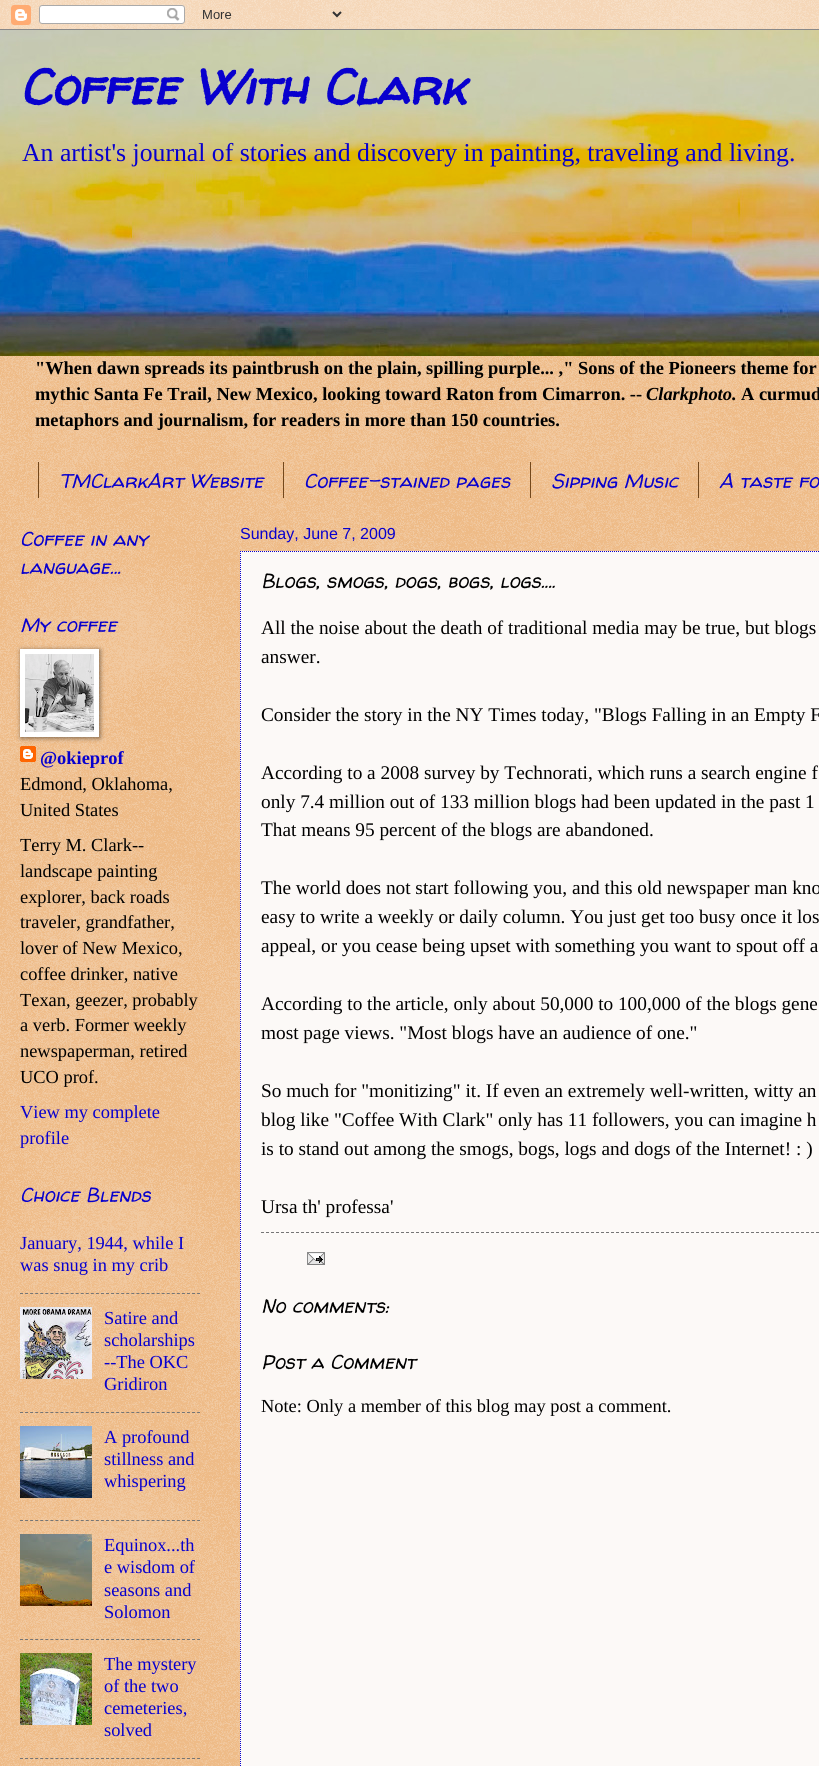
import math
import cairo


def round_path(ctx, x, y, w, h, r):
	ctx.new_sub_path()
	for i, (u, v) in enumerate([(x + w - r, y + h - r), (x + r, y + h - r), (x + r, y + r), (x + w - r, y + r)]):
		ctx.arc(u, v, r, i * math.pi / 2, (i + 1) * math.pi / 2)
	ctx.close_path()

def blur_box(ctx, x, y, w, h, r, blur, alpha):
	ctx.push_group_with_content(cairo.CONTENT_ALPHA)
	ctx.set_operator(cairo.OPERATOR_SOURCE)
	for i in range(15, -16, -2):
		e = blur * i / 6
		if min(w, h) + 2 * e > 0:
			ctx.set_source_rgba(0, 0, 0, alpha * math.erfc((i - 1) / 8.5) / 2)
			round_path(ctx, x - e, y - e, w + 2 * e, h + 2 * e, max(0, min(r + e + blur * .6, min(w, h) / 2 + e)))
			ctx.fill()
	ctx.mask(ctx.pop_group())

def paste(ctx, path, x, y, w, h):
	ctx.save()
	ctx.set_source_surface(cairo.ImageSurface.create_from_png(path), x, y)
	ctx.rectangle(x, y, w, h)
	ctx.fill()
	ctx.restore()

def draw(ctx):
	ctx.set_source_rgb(0.882, 0.537, 0.188)
	ctx.paint()
	paste(ctx, 'media/1.png', 0, 0, 819, 1766)
	paste(ctx, 'media/2.png', 0, 0, 819, 30)
	paste(ctx, 'media/3.png', 0, 30, 819, 326)
	ctx.select_font_face('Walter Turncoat', cairo.FONT_SLANT_ITALIC, cairo.FONT_WEIGHT_BOLD)
	ctx.set_font_size(50)
	ctx.set_source_rgb(0.035, 0, 0.808)
	ctx.move_to(20, 105)
	ctx.show_text('Coffee With Clark')
	ctx.select_font_face('Liberation Serif')
	ctx.set_font_size(25.75)
	ctx.move_to(22, 161)
	ctx.show_text('An artist\'s journal of stories and discovery in painting, traveling and living.')
	ctx.select_font_face('Liberation Serif', cairo.FONT_SLANT_NORMAL, cairo.FONT_WEIGHT_BOLD)
	ctx.set_font_size(18.4)
	ctx.set_source_rgb(0, 0, 0)
	ctx.move_to(35, 374)
	ctx.show_text('"When dawn spreads its paintbrush on the plain, spilling purple... ," Sons of the Pioneers theme for')
	ctx.move_to(35, 400)
	ctx.show_text('mythic Santa Fe Trail, New Mexico, looking toward Raton from Cimarron. --')
	ctx.select_font_face('Liberation Serif', cairo.FONT_SLANT_ITALIC, cairo.FONT_WEIGHT_BOLD)
	ctx.move_to(646, 400)
	ctx.show_text('Clarkphoto.')
	ctx.select_font_face('Liberation Serif', cairo.FONT_SLANT_NORMAL, cairo.FONT_WEIGHT_BOLD)
	ctx.move_to(741, 400)
	ctx.show_text('A curmud')
	ctx.move_to(35, 426)
	ctx.show_text('metaphors and journalism, for readers in more than 150 countries.')
	ctx.set_source_rgb(0.451, 0.282, 0.11)
	ctx.rectangle(283, 462, 1, 36)
	ctx.fill()
	ctx.rectangle(38, 462, 1, 36)
	ctx.fill()
	ctx.select_font_face('Walter Turncoat', cairo.FONT_SLANT_ITALIC)
	ctx.set_font_size(20)
	ctx.set_source_rgb(0.035, 0, 0.808)
	ctx.move_to(59, 488)
	ctx.show_text('TMClarkArt Website')
	ctx.set_source_rgb(0.451, 0.282, 0.11)
	ctx.rectangle(530, 462, 1, 36)
	ctx.fill()
	ctx.set_source_rgb(0.035, 0, 0.808)
	ctx.move_to(304, 488)
	ctx.show_text('Coffee-stained pages')
	ctx.set_source_rgb(0.451, 0.282, 0.11)
	ctx.rectangle(698, 462, 1, 36)
	ctx.fill()
	ctx.set_source_rgb(0.035, 0, 0.808)
	for x, y, s in [
		(551, 488, 'Sipping Music'),
		(719, 488, 'A taste fo'),
		(20, 546, 'Coffee in any'),
		(20, 574, 'language...'),
		(20, 632, 'My coffee'),
	]:
		ctx.move_to(x, y)
		ctx.show_text(s)
	paste(ctx, 'media/5.png', 20, 746, 16, 16)
	ctx.set_source_rgb(0, 0, 0)
	blur_box(ctx, 21, 650, 79, 88, 0, 2.5, 0.5)
	ctx.set_source_rgb(1, 1, 1)
	ctx.rectangle(20, 649, 79, 88)
	ctx.fill()
	paste(ctx, 'media/4.png', 25, 654, 69, 78)
	ctx.select_font_face('Liberation Serif', cairo.FONT_SLANT_NORMAL, cairo.FONT_WEIGHT_BOLD)
	ctx.set_font_size(18.4)
	ctx.set_source_rgb(0.035, 0, 0.808)
	ctx.move_to(40, 764)
	ctx.show_text('@okieprof')
	ctx.select_font_face('Liberation Serif')
	ctx.set_source_rgb(0, 0, 0)
	for x, y, s in [
		(20, 790, 'Edmond, Oklahoma,'),
		(20, 816, 'United States'),
		(20, 851, 'Terry M. Clark--'),
		(20, 877, 'landscape painting'),
		(20, 903, 'explorer, back roads'),
		(20, 928, 'traveler, grandfather,'),
		(20, 954, 'lover of New Mexico,'),
		(20, 980, 'coffee drinker, native'),
		(20, 1006, 'Texan, geezer, probably'),
		(20, 1031, 'a verb. Former weekly'),
		(20, 1057, 'newspaperman, retired'),
		(20, 1083, 'UCO prof.'),
	]:
		ctx.move_to(x, y)
		ctx.show_text(s)
	ctx.set_source_rgb(0.035, 0, 0.808)
	ctx.move_to(20, 1118)
	ctx.show_text('View my complete')
	ctx.move_to(20, 1144)
	ctx.show_text('profile')
	ctx.select_font_face('Walter Turncoat', cairo.FONT_SLANT_ITALIC)
	ctx.set_font_size(20)
	ctx.move_to(20, 1202)
	ctx.show_text('Choice Blends')
	ctx.select_font_face('Liberation Serif')
	ctx.set_font_size(18.4)
	ctx.move_to(20, 1249)
	ctx.show_text('January, 1944, while I')
	ctx.move_to(20, 1271)
	ctx.show_text('was snug in my crib')
	ctx.new_path()
	ctx.move_to(20, 1293.5)
	ctx.line_to(200, 1293.5)
	ctx.set_source_rgb(0.459, 0.459, 0.459)
	ctx.set_line_width(1)
	ctx.set_dash([3, 2.06])
	ctx.stroke()
	paste(ctx, 'media/6.png', 20, 1307, 72, 72)
	ctx.set_source_rgb(0.035, 0, 0.808)
	for x, y, s in [
		(104, 1324, 'Satire and'),
		(104, 1346, 'scholarships'),
		(104, 1368, '--The OKC'),
		(104, 1390, 'Gridiron'),
	]:
		ctx.move_to(x, y)
		ctx.show_text(s)
	ctx.new_path()
	ctx.move_to(20, 1412.5)
	ctx.line_to(200, 1412.5)
	ctx.set_source_rgb(0.459, 0.459, 0.459)
	ctx.stroke()
	paste(ctx, 'media/7.png', 20, 1426, 72, 72)
	ctx.set_source_rgb(0.035, 0, 0.808)
	for x, y, s in [
		(104, 1443, 'A profound'),
		(104, 1465, 'stillness and'),
		(104, 1487, 'whispering'),
	]:
		ctx.move_to(x, y)
		ctx.show_text(s)
	ctx.new_path()
	ctx.move_to(20, 1520.5)
	ctx.line_to(200, 1520.5)
	ctx.set_source_rgb(0.459, 0.459, 0.459)
	ctx.stroke()
	paste(ctx, 'media/8.png', 20, 1534, 72, 72)
	ctx.set_source_rgb(0.035, 0, 0.808)
	for x, y, s in [
		(104, 1551, 'Equinox...th'),
		(104, 1573, 'e wisdom of'),
		(104, 1596, 'seasons and'),
		(104, 1618, 'Solomon'),
	]:
		ctx.move_to(x, y)
		ctx.show_text(s)
	ctx.new_path()
	ctx.move_to(20, 1639.5)
	ctx.line_to(200, 1639.5)
	ctx.set_source_rgb(0.459, 0.459, 0.459)
	ctx.stroke()
	paste(ctx, 'media/9.png', 20, 1653, 72, 72)
	ctx.set_source_rgb(0.035, 0, 0.808)
	for x, y, s in [
		(104, 1670, 'The mystery'),
		(104, 1692, 'of the two'),
		(104, 1714, 'cemeteries,'),
		(104, 1736, 'solved'),
	]:
		ctx.move_to(x, y)
		ctx.show_text(s)
	ctx.new_path()
	ctx.move_to(20, 1758.5)
	ctx.line_to(200, 1758.5)
	ctx.set_source_rgb(0.459, 0.459, 0.459)
	ctx.stroke()
	ctx.select_font_face('Liberation Sans')
	ctx.set_font_size(16)
	ctx.set_source_rgb(0.035, 0, 0.808)
	ctx.move_to(240, 539)
	ctx.show_text('Sunday, June 7, 2009')
	ctx.set_source_rgb(0.988, 0.976, 0.965)
	ctx.rectangle(240, 551, 579, 1215)
	ctx.fill()
	ctx.new_path()
	ctx.move_to(240, 551.5)
	ctx.line_to(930, 551.5)
	ctx.set_source_rgb(0.035, 0, 0.808)
	ctx.set_dash([1, 1])
	ctx.stroke()
	ctx.new_path()
	ctx.move_to(240.5, 551)
	ctx.line_to(240.5, 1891)
	ctx.stroke()
	ctx.select_font_face('Walter Turncoat', cairo.FONT_SLANT_ITALIC)
	ctx.set_font_size(20)
	ctx.set_source_rgb(0, 0, 0)
	ctx.move_to(261, 588)
	ctx.show_text('Blogs, smogs, dogs, bogs, logs....')
	ctx.select_font_face('Liberation Serif')
	ctx.set_font_size(19.3)
	for x, y, s in [
		(261, 634, 'All the noise about the death of traditional media may be true, but blogs'),
		(261, 663, 'answer.'),
		(261, 721, 'Consider the story in the NY Times today, "Blogs Falling in an Empty F'),
		(261, 779, 'According to a 2008 survey by Technorati, which runs a search engine f'),
		(261, 808, 'only 7.4 million out of 133 million blogs had been updated in the past 1'),
		(261, 836, 'That means 95 percent of the blogs are abandoned.'),
		(261, 894, 'The world does not start following you, and this old newspaper man kno'),
		(261, 923, 'easy to write a weekly or daily column. You just get too busy once it los'),
		(261, 952, 'appeal, or you cease being upset with something you want to spout off a'),
		(261, 1010, 'According to the article, only about 50,000 to 100,000 of the blogs gene'),
		(261, 1039, 'most page views. "Most blogs have an audience of one."'),
		(261, 1097, 'So much for "monitizing" it. If even an extremely well-written, witty an'),
		(261, 1126, 'blog like "Coffee With Clark" only has 11 followers, you can imagine h'),
		(261, 1155, 'is to stand out among the smogs, bogs, logs and dogs of the Internet! : )'),
		(261, 1213, 'Ursa th\' professa\''),
	]:
		ctx.move_to(x, y)
		ctx.show_text(s)
	ctx.new_path()
	ctx.move_to(261, 1232.5)
	ctx.line_to(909, 1232.5)
	ctx.set_source_rgb(0.459, 0.459, 0.459)
	ctx.set_dash([3, 2])
	ctx.stroke()
	paste(ctx, 'media/10.png', 307, 1252, 18, 13)
	ctx.select_font_face('Walter Turncoat', cairo.FONT_SLANT_ITALIC)
	ctx.set_font_size(20)
	ctx.set_source_rgb(0, 0, 0)
	ctx.move_to(261, 1313)
	ctx.show_text('No comments:')
	ctx.move_to(261, 1369)
	ctx.show_text('Post a Comment')
	ctx.select_font_face('Liberation Serif')
	ctx.set_font_size(18.4)
	ctx.move_to(261, 1412)
	ctx.show_text('Note: Only a member of this blog may post a comment.')


surface = cairo.ImageSurface(cairo.FORMAT_RGB24, 819, 1766)
ctx = cairo.Context(surface)
options = cairo.FontOptions()
options.set_hint_metrics(cairo.HINT_METRICS_OFF)
options.set_hint_style(cairo.HINT_STYLE_NONE)
ctx.set_font_options(options)
ctx.set_miter_limit(4)
draw(ctx)
surface.write_to_png('image.png')
